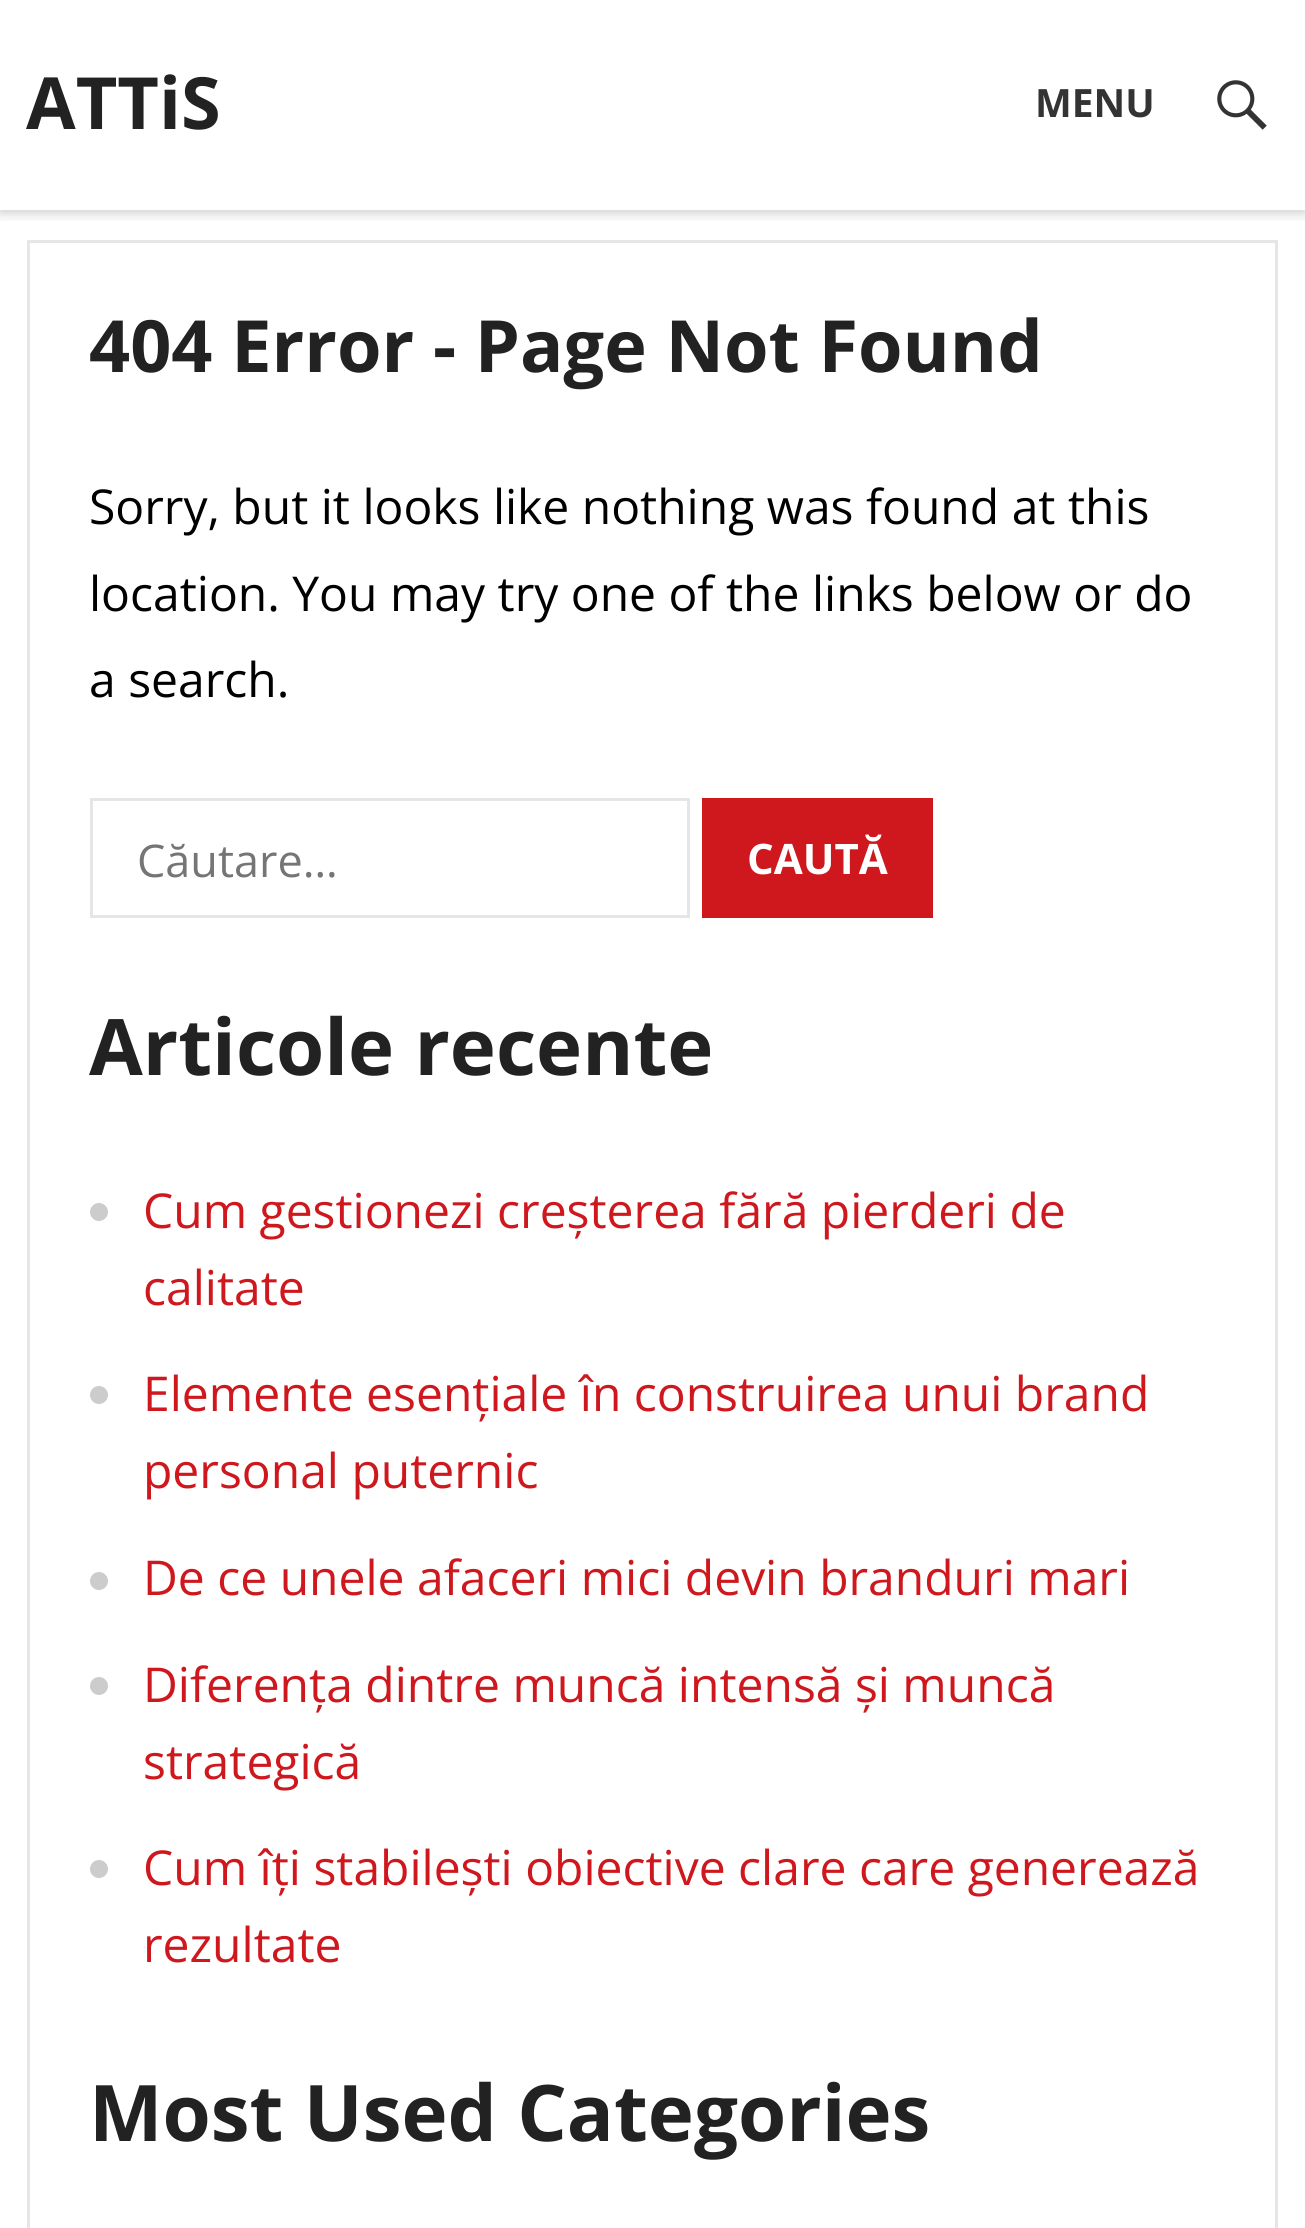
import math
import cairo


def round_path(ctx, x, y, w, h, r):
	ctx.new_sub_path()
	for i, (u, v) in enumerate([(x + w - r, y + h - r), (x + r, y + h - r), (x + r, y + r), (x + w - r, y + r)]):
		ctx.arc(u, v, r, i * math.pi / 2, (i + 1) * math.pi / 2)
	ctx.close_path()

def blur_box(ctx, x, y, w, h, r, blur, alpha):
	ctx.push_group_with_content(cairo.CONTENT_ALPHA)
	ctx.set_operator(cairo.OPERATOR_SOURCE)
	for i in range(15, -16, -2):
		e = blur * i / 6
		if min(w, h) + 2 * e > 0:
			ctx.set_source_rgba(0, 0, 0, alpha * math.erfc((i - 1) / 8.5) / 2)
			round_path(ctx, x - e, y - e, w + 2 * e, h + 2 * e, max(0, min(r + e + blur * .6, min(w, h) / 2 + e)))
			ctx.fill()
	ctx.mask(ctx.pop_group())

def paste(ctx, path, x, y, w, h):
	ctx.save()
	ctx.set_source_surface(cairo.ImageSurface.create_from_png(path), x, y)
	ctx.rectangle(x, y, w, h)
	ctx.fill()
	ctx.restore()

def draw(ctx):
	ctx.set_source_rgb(1, 1, 1)
	ctx.paint()
	ctx.save()
	ctx.rectangle(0, 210, 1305, 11)
	ctx.clip()
	ctx.set_source_rgb(0, 0, 0)
	blur_box(ctx, 0, 3, 1305, 210, 0, 6, 0.2)
	ctx.restore()
	ctx.select_font_face('Open Sans', cairo.FONT_SLANT_NORMAL, cairo.FONT_WEIGHT_BOLD)
	ctx.set_font_size(72)
	ctx.set_source_rgb(0.133, 0.133, 0.133)
	ctx.move_to(26, 129)
	ctx.show_text('ATTiS')
	ctx.set_font_size(39)
	ctx.set_source_rgb(0.2, 0.2, 0.2)
	ctx.move_to(1035, 117)
	ctx.show_text('MENU')
	paste(ctx, 'media/1.png', 1217, 80, 50, 50)
	ctx.rectangle(28.5, 241.5, 1248, 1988)
	ctx.set_source_rgb(0.902, 0.902, 0.902)
	ctx.set_line_width(3)
	ctx.stroke()
	ctx.set_font_size(72)
	ctx.set_source_rgb(0.133, 0.133, 0.133)
	ctx.move_to(89, 372)
	ctx.show_text('404 Error - Page Not Found')
	ctx.select_font_face('Open Sans')
	ctx.set_font_size(48)
	ctx.set_source_rgb(0, 0, 0)
	for x, y, s in [
		(89, 524, 'Sorry, but it looks like nothing was found at this'),
		(89, 611, 'location. You may try one of the links below or do'),
		(89, 697, 'a search.'),
	]:
		ctx.move_to(x, y)
		ctx.show_text(s)
	ctx.rectangle(91.5, 799.5, 597, 117)
	ctx.set_source_rgb(0.902, 0.902, 0.902)
	ctx.stroke()
	ctx.set_font_size(45)
	ctx.set_source_rgb(0.459, 0.459, 0.459)
	ctx.move_to(137, 877)
	ctx.show_text('Căutare…')
	ctx.set_source_rgb(0.808, 0.094, 0.118)
	ctx.rectangle(702, 798, 231, 120)
	ctx.fill()
	ctx.select_font_face('Open Sans', cairo.FONT_SLANT_NORMAL, cairo.FONT_WEIGHT_BOLD)
	ctx.set_font_size(42)
	ctx.set_source_rgb(1, 1, 1)
	ctx.move_to(747, 874)
	ctx.show_text('CAUTĂ')
	ctx.set_font_size(78)
	ctx.set_source_rgb(0.133, 0.133, 0.133)
	ctx.move_to(89, 1075)
	ctx.show_text('Articole recente')
	ctx.set_source_rgb(0.8, 0.8, 0.8)
	ctx.new_path()
	ctx.arc(99, 1212, 9, 0, 2 * math.pi)
	ctx.fill()
	ctx.select_font_face('Open Sans')
	ctx.set_font_size(48)
	ctx.set_source_rgb(0.808, 0.094, 0.118)
	ctx.move_to(143, 1228)
	ctx.show_text('Cum gestionezi creșterea fără pierderi de')
	ctx.move_to(143, 1305)
	ctx.show_text('calitate')
	ctx.set_source_rgb(0.8, 0.8, 0.8)
	ctx.new_path()
	ctx.arc(99, 1395, 9, 0, 2 * math.pi)
	ctx.fill()
	ctx.set_source_rgb(0.808, 0.094, 0.118)
	ctx.move_to(143, 1411)
	ctx.show_text('Elemente esențiale în construirea unui brand')
	ctx.move_to(143, 1488)
	ctx.show_text('personal puternic')
	ctx.set_source_rgb(0.8, 0.8, 0.8)
	ctx.new_path()
	ctx.arc(99, 1581, 9, 0, 2 * math.pi)
	ctx.fill()
	ctx.set_source_rgb(0.808, 0.094, 0.118)
	ctx.move_to(143, 1595)
	ctx.show_text('De ce unele afaceri mici devin branduri mari')
	ctx.set_source_rgb(0.8, 0.8, 0.8)
	ctx.new_path()
	ctx.arc(99, 1686, 9, 0, 2 * math.pi)
	ctx.fill()
	ctx.set_source_rgb(0.808, 0.094, 0.118)
	ctx.move_to(143, 1702)
	ctx.show_text('Diferența dintre muncă intensă și muncă')
	ctx.move_to(143, 1779)
	ctx.show_text('strategică')
	ctx.set_source_rgb(0.8, 0.8, 0.8)
	ctx.new_path()
	ctx.arc(99, 1869, 9, 0, 2 * math.pi)
	ctx.fill()
	ctx.set_source_rgb(0.808, 0.094, 0.118)
	ctx.move_to(143, 1885)
	ctx.show_text('Cum îți stabilești obiective clare care generează')
	ctx.move_to(143, 1962)
	ctx.show_text('rezultate')
	ctx.select_font_face('Open Sans', cairo.FONT_SLANT_NORMAL, cairo.FONT_WEIGHT_BOLD)
	ctx.set_font_size(78)
	ctx.set_source_rgb(0.133, 0.133, 0.133)
	ctx.move_to(89, 2141)
	ctx.show_text('Most Used Categories')


surface = cairo.ImageSurface(cairo.FORMAT_RGB24, 1305, 2228)
ctx = cairo.Context(surface)
options = cairo.FontOptions()
options.set_hint_metrics(cairo.HINT_METRICS_OFF)
options.set_hint_style(cairo.HINT_STYLE_NONE)
ctx.set_font_options(options)
ctx.set_miter_limit(4)
draw(ctx)
surface.write_to_png('image.png')
